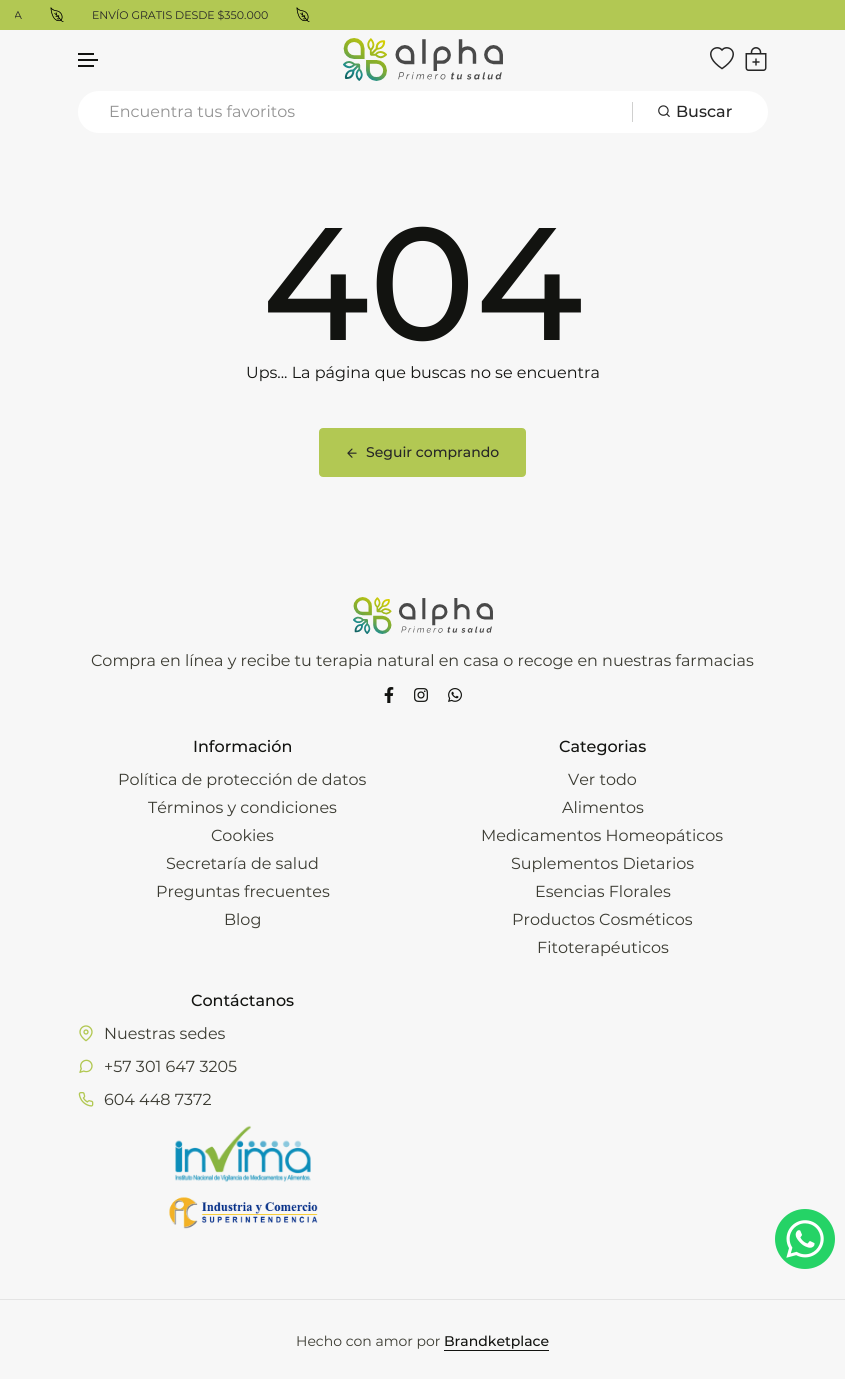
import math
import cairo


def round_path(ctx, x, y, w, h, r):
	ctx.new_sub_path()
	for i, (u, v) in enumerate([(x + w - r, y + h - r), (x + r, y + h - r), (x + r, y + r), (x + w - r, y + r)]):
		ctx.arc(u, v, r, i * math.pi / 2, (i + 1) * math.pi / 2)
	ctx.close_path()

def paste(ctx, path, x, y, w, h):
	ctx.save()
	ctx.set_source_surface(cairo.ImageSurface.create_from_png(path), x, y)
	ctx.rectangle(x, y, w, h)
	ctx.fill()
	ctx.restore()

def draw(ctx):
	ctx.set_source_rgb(0.965, 0.965, 0.965)
	ctx.paint()
	ctx.set_source_rgb(0.698, 0.784, 0.325)
	ctx.rectangle(0, 0, 845, 30)
	ctx.fill()
	ctx.save()
	ctx.rectangle(15, 0, 815, 30)
	ctx.clip()
	ctx.select_font_face('Montserrat')
	ctx.set_font_size(11)
	ctx.set_source_rgb(0.149, 0.149, 0.149)
	ctx.move_to(14, 19)
	ctx.show_text('A')
	ctx.restore()
	paste(ctx, 'media/1.png', 50, 7, 14, 15)
	ctx.select_font_face('Montserrat')
	ctx.set_font_size(11)
	ctx.set_source_rgb(0.149, 0.149, 0.149)
	ctx.move_to(92, 19)
	ctx.show_text('ENVÍO GRATIS DESDE $350.000')
	paste(ctx, 'media/1.png', 296, 7, 14, 15)
	ctx.set_source_rgb(0.071, 0.075, 0.063)
	ctx.rectangle(78, 53, 16, 2)
	ctx.rectangle(78, 59, 20, 2)
	ctx.rectangle(78, 65, 16, 2)
	ctx.fill()
	paste(ctx, 'media/2.png', 343, 38, 160, 43)
	paste(ctx, 'media/3.png', 710, 47, 24, 23)
	paste(ctx, 'media/4.png', 745, 47, 22, 24)
	ctx.set_source_rgb(1, 1, 1)
	round_path(ctx, 78, 91, 690, 42, 21)
	ctx.fill()
	ctx.set_font_size(16)
	ctx.set_source_rgb(0.576, 0.576, 0.576)
	ctx.move_to(109, 117)
	ctx.show_text('Encuentra tus favoritos')
	ctx.set_source_rgb(0.816, 0.816, 0.812)
	ctx.rectangle(632, 102, 1, 20)
	ctx.fill()
	paste(ctx, 'media/5.png', 658, 105, 12, 12)
	ctx.select_font_face('Montserrat Medium')
	ctx.set_source_rgb(0.149, 0.149, 0.149)
	ctx.move_to(676, 117)
	ctx.show_text('Buscar')
	ctx.set_font_size(160)
	ctx.set_source_rgb(0.071, 0.075, 0.063)
	ctx.move_to(262, 340)
	ctx.show_text('404')
	ctx.select_font_face('Montserrat')
	ctx.set_font_size(16)
	ctx.move_to(246, 378)
	ctx.show_text('Ups... La página que buscas no se encuentra')
	ctx.set_source_rgb(0.698, 0.784, 0.325)
	round_path(ctx, 320, 429, 205, 47, 3)
	ctx.fill_preserve()
	ctx.stroke()
	paste(ctx, 'media/6.png', 347, 448, 10, 10)
	ctx.select_font_face('Montserrat Medium')
	ctx.set_font_size(14)
	ctx.set_source_rgb(0.149, 0.149, 0.149)
	ctx.move_to(366, 457)
	ctx.show_text('Seguir comprando')
	ctx.set_source_rgb(0.894, 0.894, 0.894)
	ctx.rectangle(0, 1299, 845, 1)
	ctx.fill()
	paste(ctx, 'media/7.png', 353, 597, 140, 37)
	ctx.select_font_face('Montserrat')
	ctx.set_font_size(16)
	ctx.set_source_rgb(0.231, 0.231, 0.196)
	ctx.move_to(91, 666)
	ctx.show_text('Compra en línea y recibe tu terapia natural en casa o recoge en nuestras farmacias')
	paste(ctx, 'media/8.png', 384, 687, 10, 16)
	paste(ctx, 'media/9.png', 414, 688, 14, 14)
	paste(ctx, 'media/10.png', 448, 688, 14, 14)
	ctx.select_font_face('Montserrat Medium')
	ctx.set_source_rgb(0.071, 0.075, 0.063)
	ctx.move_to(193, 752)
	ctx.show_text('Información')
	ctx.select_font_face('Montserrat')
	ctx.set_source_rgb(0.231, 0.231, 0.196)
	for x, y, s in [
		(118, 785, 'Política de protección de datos'),
		(148, 813, 'Términos y condiciones'),
		(211, 841, 'Cookies'),
		(166, 869, 'Secretaría de salud'),
		(156, 897, 'Preguntas frecuentes'),
		(224, 925, 'Blog'),
	]:
		ctx.move_to(x, y)
		ctx.show_text(s)
	ctx.select_font_face('Montserrat Medium')
	ctx.set_source_rgb(0.071, 0.075, 0.063)
	ctx.move_to(559, 752)
	ctx.show_text('Categorias')
	ctx.select_font_face('Montserrat')
	ctx.set_source_rgb(0.231, 0.231, 0.196)
	for x, y, s in [
		(568, 785, 'Ver todo'),
		(562, 813, 'Alimentos'),
		(481, 841, 'Medicamentos Homeopáticos'),
		(511, 869, 'Suplementos Dietarios'),
		(535, 897, 'Esencias Florales'),
		(512, 925, 'Productos Cosméticos'),
		(537, 953, 'Fitoterapéuticos'),
	]:
		ctx.move_to(x, y)
		ctx.show_text(s)
	ctx.select_font_face('Montserrat Medium')
	ctx.set_source_rgb(0.071, 0.075, 0.063)
	ctx.move_to(191, 1006)
	ctx.show_text('Contáctanos')
	paste(ctx, 'media/11.png', 79, 1025, 14, 17)
	ctx.select_font_face('Montserrat')
	ctx.set_source_rgb(0.231, 0.231, 0.196)
	ctx.move_to(104, 1039)
	ctx.show_text('Nuestras sedes')
	paste(ctx, 'media/12.png', 79, 1059, 14, 14)
	ctx.move_to(104, 1072)
	ctx.show_text('+57 301 647 3205')
	paste(ctx, 'media/13.png', 78, 1092, 16, 15)
	ctx.move_to(104, 1105)
	ctx.show_text('604 448 7372')
	paste(ctx, 'media/14.png', 175, 1125, 136, 57)
	paste(ctx, 'media/15.png', 169, 1197, 149, 32)
	ctx.set_font_size(14)
	ctx.move_to(296, 1346)
	ctx.show_text('Hecho con amor por')
	ctx.select_font_face('Montserrat Medium')
	ctx.set_source_rgb(0.071, 0.075, 0.063)
	ctx.move_to(444, 1346)
	ctx.show_text('Brandketplace')
	ctx.rectangle(444, 1350, 105, 1)
	ctx.fill()
	ctx.set_source_rgb(0.145, 0.827, 0.4)
	ctx.arc(805, 1239, 30, 0, 2 * math.pi)
	ctx.fill()
	paste(ctx, 'media/16.png', 786, 1220, 38, 38)


surface = cairo.ImageSurface(cairo.FORMAT_RGB24, 845, 1379)
ctx = cairo.Context(surface)
options = cairo.FontOptions()
options.set_hint_metrics(cairo.HINT_METRICS_OFF)
options.set_hint_style(cairo.HINT_STYLE_NONE)
ctx.set_font_options(options)
ctx.set_miter_limit(4)
draw(ctx)
surface.write_to_png('image.png')
